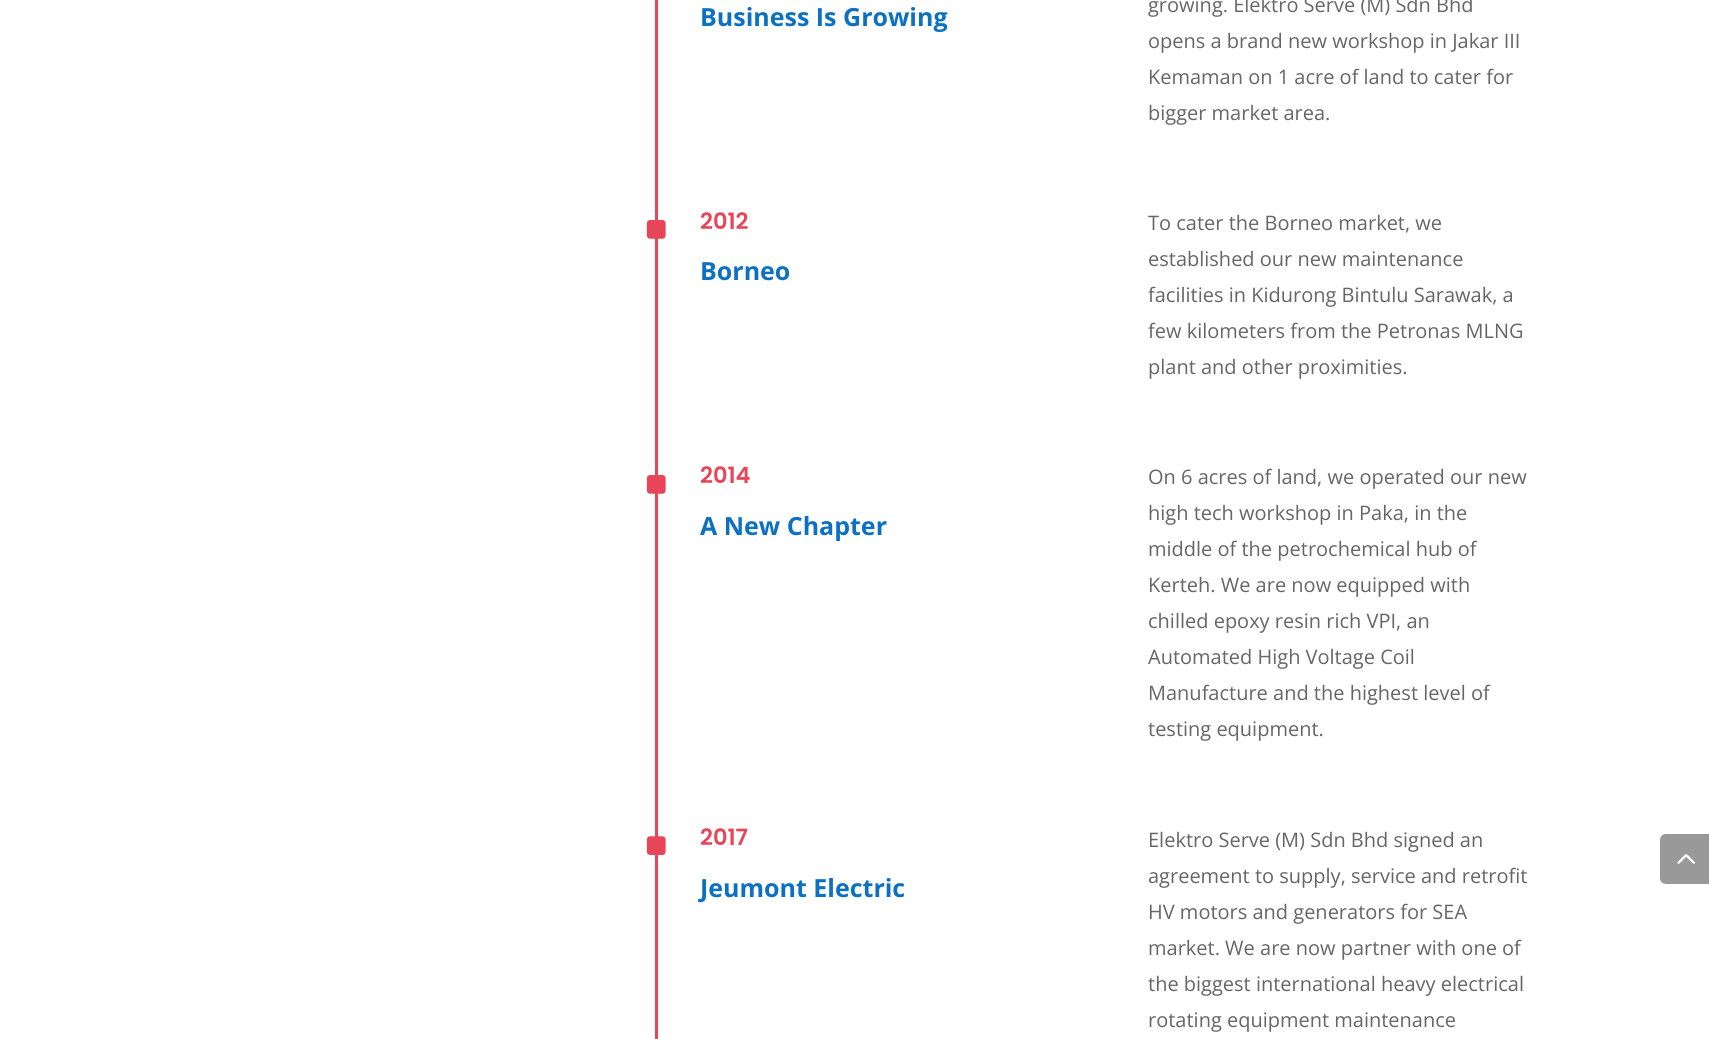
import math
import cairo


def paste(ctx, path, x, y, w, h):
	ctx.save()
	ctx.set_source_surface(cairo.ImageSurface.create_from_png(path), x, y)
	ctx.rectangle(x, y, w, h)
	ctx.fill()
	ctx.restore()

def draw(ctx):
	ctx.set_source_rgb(1, 1, 1)
	ctx.paint()
	ctx.set_source_rgb(0.914, 0.271, 0.345)
	ctx.rectangle(655, 0, 3, 1039)
	ctx.fill()
	ctx.select_font_face('Open Sans', cairo.FONT_SLANT_NORMAL, cairo.FONT_WEIGHT_BOLD)
	ctx.set_font_size(25)
	ctx.set_source_rgb(0.047, 0.443, 0.765)
	ctx.move_to(700, 26)
	ctx.show_text('Business Is Growing')
	ctx.select_font_face('Open Sans')
	ctx.set_font_size(20)
	ctx.set_source_rgb(0.4, 0.4, 0.4)
	for x, y, s in [
		(1148, 12, 'growing. Elektro Serve (M) Sdn Bhd'),
		(1148, 48, 'opens a brand new workshop in Jakar III'),
		(1148, 84, 'Kemaman on 1 acre of land to cater for'),
		(1148, 120, 'bigger market area.'),
	]:
		ctx.move_to(x, y)
		ctx.show_text(s)
	paste(ctx, 'media/1.png', 646, 220, 20, 19)
	ctx.select_font_face('Poppins SemiBold')
	ctx.set_font_size(22.5)
	ctx.set_source_rgb(0.914, 0.271, 0.345)
	ctx.move_to(700, 229)
	ctx.show_text('2012')
	ctx.select_font_face('Open Sans', cairo.FONT_SLANT_NORMAL, cairo.FONT_WEIGHT_BOLD)
	ctx.set_font_size(25)
	ctx.set_source_rgb(0.047, 0.443, 0.765)
	ctx.move_to(700, 280)
	ctx.show_text('Borneo')
	ctx.select_font_face('Open Sans')
	ctx.set_font_size(20)
	ctx.set_source_rgb(0.4, 0.4, 0.4)
	for x, y, s in [
		(1148, 230, 'To cater the Borneo market, we'),
		(1148, 266, 'established our new maintenance'),
		(1148, 302, 'facilities in Kidurong Bintulu Sarawak, a'),
		(1148, 338, 'few kilometers from the Petronas MLNG'),
		(1148, 374, 'plant and other proximities.'),
	]:
		ctx.move_to(x, y)
		ctx.show_text(s)
	paste(ctx, 'media/1.png', 646, 475, 20, 19)
	ctx.select_font_face('Poppins SemiBold')
	ctx.set_font_size(22.5)
	ctx.set_source_rgb(0.914, 0.271, 0.345)
	ctx.move_to(700, 483)
	ctx.show_text('2014')
	ctx.select_font_face('Open Sans', cairo.FONT_SLANT_NORMAL, cairo.FONT_WEIGHT_BOLD)
	ctx.set_font_size(25)
	ctx.set_source_rgb(0.047, 0.443, 0.765)
	ctx.move_to(700, 535)
	ctx.show_text('A New Chapter')
	ctx.select_font_face('Open Sans')
	ctx.set_font_size(20)
	ctx.set_source_rgb(0.4, 0.4, 0.4)
	for x, y, s in [
		(1148, 484, 'On 6 acres of land, we operated our new'),
		(1148, 520, 'high tech workshop in Paka, in the'),
		(1148, 556, 'middle of the petrochemical hub of'),
		(1148, 592, 'Kerteh. We are now equipped with'),
		(1148, 628, 'chilled epoxy resin rich VPI, an'),
		(1148, 664, 'Automated High Voltage Coil'),
		(1148, 700, 'Manufacture and the highest level of'),
		(1148, 736, 'testing equipment.'),
	]:
		ctx.move_to(x, y)
		ctx.show_text(s)
	paste(ctx, 'media/2.png', 646, 836, 20, 19)
	ctx.select_font_face('Poppins SemiBold')
	ctx.set_font_size(22.5)
	ctx.set_source_rgb(0.914, 0.271, 0.345)
	ctx.move_to(700, 845)
	ctx.show_text('2017')
	ctx.select_font_face('Open Sans', cairo.FONT_SLANT_NORMAL, cairo.FONT_WEIGHT_BOLD)
	ctx.set_font_size(25)
	ctx.set_source_rgb(0.047, 0.443, 0.765)
	ctx.move_to(700, 897)
	ctx.show_text('Jeumont Electric')
	ctx.select_font_face('Open Sans')
	ctx.set_font_size(20)
	ctx.set_source_rgb(0.4, 0.4, 0.4)
	for x, y, s in [
		(1148, 847, 'Elektro Serve (M) Sdn Bhd signed an'),
		(1148, 883, 'agreement to supply, service and retrofit'),
		(1148, 919, 'HV motors and generators for SEA'),
		(1148, 955, 'market. We are now partner with one of'),
		(1148, 991, 'the biggest international heavy electrical'),
		(1148, 1027, 'rotating equipment maintenance'),
	]:
		ctx.move_to(x, y)
		ctx.show_text(s)
	ctx.set_source_rgb(0.6, 0.6, 0.6)
	ctx.new_path()
	ctx.move_to(1666, 834)
	ctx.line_to(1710, 834)
	ctx.line_to(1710, 884)
	ctx.line_to(1666, 884)
	ctx.curve_to(1662.5, 884, 1660, 881.5, 1660, 878)
	ctx.line_to(1660, 840)
	ctx.curve_to(1660, 836.5, 1662.5, 834, 1666, 834)
	ctx.close_path()
	ctx.fill()
	paste(ctx, 'media/3.png', 1677, 854, 18, 10)


surface = cairo.ImageSurface(cairo.FORMAT_RGB24, 1709, 1039)
ctx = cairo.Context(surface)
options = cairo.FontOptions()
options.set_hint_metrics(cairo.HINT_METRICS_OFF)
options.set_hint_style(cairo.HINT_STYLE_NONE)
ctx.set_font_options(options)
ctx.set_miter_limit(4)
draw(ctx)
surface.write_to_png('image.png')
